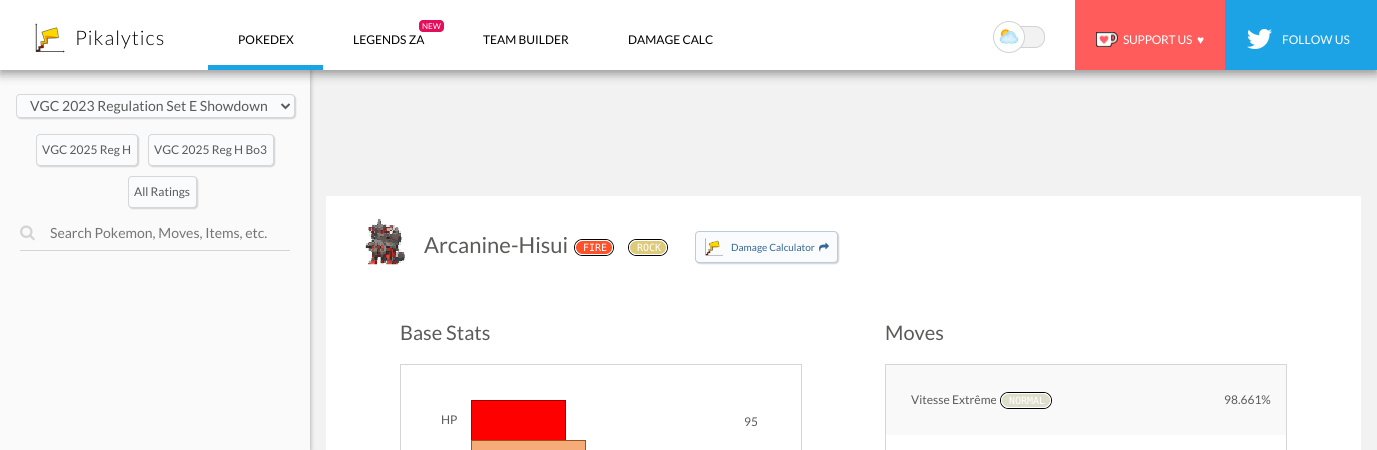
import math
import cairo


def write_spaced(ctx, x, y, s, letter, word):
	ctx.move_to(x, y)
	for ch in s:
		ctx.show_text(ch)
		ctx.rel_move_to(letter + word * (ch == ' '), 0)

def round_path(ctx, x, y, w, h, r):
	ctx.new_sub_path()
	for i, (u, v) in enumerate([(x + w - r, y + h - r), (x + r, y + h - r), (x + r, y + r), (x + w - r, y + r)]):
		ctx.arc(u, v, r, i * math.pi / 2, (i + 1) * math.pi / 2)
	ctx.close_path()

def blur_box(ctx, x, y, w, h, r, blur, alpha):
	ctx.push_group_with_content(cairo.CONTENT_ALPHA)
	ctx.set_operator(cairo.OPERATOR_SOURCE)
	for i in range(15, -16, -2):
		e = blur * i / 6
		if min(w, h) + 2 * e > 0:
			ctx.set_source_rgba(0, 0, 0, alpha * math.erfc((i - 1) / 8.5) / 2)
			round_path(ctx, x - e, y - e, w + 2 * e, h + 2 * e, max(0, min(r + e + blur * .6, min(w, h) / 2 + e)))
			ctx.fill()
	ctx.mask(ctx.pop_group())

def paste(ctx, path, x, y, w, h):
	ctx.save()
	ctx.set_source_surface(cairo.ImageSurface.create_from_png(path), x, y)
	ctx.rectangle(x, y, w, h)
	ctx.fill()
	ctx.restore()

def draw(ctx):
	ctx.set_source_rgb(0.949, 0.949, 0.949)
	ctx.paint()
	ctx.set_source_rgb(0, 0, 0)
	blur_box(ctx, 0, 70, 310, 380, 0, 2.5, 0.35)
	ctx.set_source_rgb(0.98, 0.98, 0.98)
	ctx.rectangle(0, 70, 310, 380)
	ctx.fill()
	ctx.set_source_rgb(0, 0, 0)
	blur_box(ctx, 0, 4, 1377, 70, 0, 5, 0.39)
	ctx.set_source_rgb(1, 1, 1)
	ctx.rectangle(0, 0, 1075, 70)
	ctx.fill()
	paste(ctx, 'media/1.png', 35, 23, 30, 30)
	ctx.select_font_face('Lato Light')
	ctx.set_font_size(20)
	ctx.set_source_rgb(0, 0, 0)
	write_spaced(ctx, 75, 45, 'Pikalytics', 1, 0)
	ctx.set_source_rgb(0.106, 0.639, 0.902)
	ctx.rectangle(208, 65, 115, 5)
	ctx.fill()
	ctx.select_font_face('Lato')
	ctx.set_font_size(12)
	ctx.set_source_rgb(0, 0, 0)
	ctx.move_to(238, 44)
	ctx.show_text('POKEDEX')
	ctx.set_source_rgb(0.89, 0.059, 0.361)
	round_path(ctx, 419, 20, 25, 12, 4)
	ctx.fill()
	ctx.set_font_size(8)
	ctx.set_source_rgb(1, 1, 1)
	ctx.move_to(422, 29)
	ctx.show_text('NEW')
	ctx.set_font_size(12)
	ctx.set_source_rgb(0, 0, 0)
	for x, y, s in [
		(353, 44, 'LEGENDS ZA'),
		(483, 44, 'TEAM BUILDER'),
		(628, 44, 'DAMAGE CALC'),
	]:
		ctx.move_to(x, y)
		ctx.show_text(s)
	ctx.set_source_rgb(0.949, 0.949, 0.949)
	round_path(ctx, 995.5, 26.5, 49, 21, 9.5)
	ctx.fill_preserve()
	ctx.set_source_rgb(0.824, 0.824, 0.824)
	ctx.set_line_width(1)
	ctx.stroke()
	ctx.set_source_rgb(0.988, 1, 0.988)
	ctx.arc(1009, 37, 15.5, 0, 2 * math.pi)
	ctx.fill_preserve()
	ctx.set_source_rgb(0.824, 0.824, 0.824)
	ctx.stroke()
	paste(ctx, 'media/2.png', 999, 27, 20, 17)
	ctx.set_source_rgb(1, 0.361, 0.357)
	ctx.rectangle(1075, 0, 150, 70)
	ctx.fill()
	paste(ctx, 'media/3.png', 1096, 32, 22, 15)
	ctx.set_source_rgb(1, 1, 1)
	write_spaced(ctx, 1123, 44, 'SUPPORT US', -0.25, 0)
	ctx.select_font_face('Liberation Serif')
	write_spaced(ctx, 1197, 44, '♥', -0.25, 0)
	ctx.set_source_rgb(0.106, 0.639, 0.902)
	ctx.rectangle(1225, 0, 152, 70)
	ctx.fill()
	paste(ctx, 'media/4.png', 1247, 29, 25, 20)
	ctx.select_font_face('Lato')
	ctx.set_source_rgb(1, 1, 1)
	ctx.move_to(1282, 44)
	ctx.show_text('FOLLOW US')
	ctx.set_source_rgb(0.835, 0.835, 0.835)
	blur_box(ctx, 17, 95, 279, 24, 4, 0.5, 1)
	ctx.set_source_rgb(0.973, 0.984, 0.992)
	round_path(ctx, 16.5, 94.5, 278, 23, 3.5)
	ctx.fill_preserve()
	ctx.set_source_rgb(0.843, 0.843, 0.843)
	ctx.stroke()
	ctx.new_path()
	ctx.move_to(281.5, 104)
	ctx.line_to(285.5, 108)
	ctx.line_to(289.5, 104)
	ctx.set_source_rgb(0.349, 0.349, 0.349)
	ctx.set_line_width(2)
	ctx.stroke()
	ctx.set_font_size(14)
	ctx.set_source_rgb(0.353, 0.353, 0.345)
	ctx.move_to(30, 111)
	ctx.show_text('VGC 2023 Regulation Set E Showdown')
	ctx.set_source_rgb(0.835, 0.835, 0.835)
	blur_box(ctx, 37, 135, 102, 32, 4, 0.5, 1)
	ctx.set_source_rgb(0.973, 0.984, 0.992)
	round_path(ctx, 36.5, 134.5, 101, 31, 3.5)
	ctx.fill_preserve()
	ctx.set_source_rgb(0.843, 0.843, 0.843)
	ctx.set_line_width(1)
	ctx.stroke()
	ctx.set_font_size(12)
	ctx.set_source_rgb(0.353, 0.353, 0.345)
	ctx.move_to(42, 154)
	ctx.show_text('VGC 2025 Reg H')
	ctx.set_source_rgb(0.835, 0.835, 0.835)
	blur_box(ctx, 149, 135, 126, 32, 4, 0.5, 1)
	ctx.set_source_rgb(0.973, 0.984, 0.992)
	round_path(ctx, 148.5, 134.5, 125, 31, 3.5)
	ctx.fill_preserve()
	ctx.set_source_rgb(0.843, 0.843, 0.843)
	ctx.stroke()
	ctx.set_source_rgb(0.353, 0.353, 0.345)
	ctx.move_to(154, 154)
	ctx.show_text('VGC 2025 Reg H Bo3')
	ctx.set_source_rgb(0.835, 0.835, 0.835)
	blur_box(ctx, 129, 177, 69, 32, 4, 0.5, 1)
	ctx.set_source_rgb(0.973, 0.984, 0.992)
	round_path(ctx, 128.5, 176.5, 68, 31, 3.5)
	ctx.fill_preserve()
	ctx.set_source_rgb(0.843, 0.843, 0.843)
	ctx.stroke()
	ctx.set_source_rgb(0.353, 0.353, 0.345)
	ctx.move_to(134, 196)
	ctx.show_text('All Ratings')
	paste(ctx, 'media/5.png', 20, 225, 15, 16)
	ctx.set_source_rgb(0.827, 0.835, 0.843)
	ctx.rectangle(20, 250, 270, 1)
	ctx.fill()
	ctx.set_font_size(14)
	ctx.set_source_rgb(0.459, 0.459, 0.459)
	ctx.move_to(50, 238)
	ctx.show_text('Search Pokemon, Moves, Items, etc.')
	ctx.set_source_rgb(1, 1, 1)
	ctx.rectangle(326, 196, 1035, 254)
	ctx.fill()
	paste(ctx, 'media/6.png', 365, 219, 40, 46)
	ctx.set_font_size(22)
	ctx.set_source_rgb(0.353, 0.353, 0.345)
	ctx.move_to(424, 253)
	ctx.show_text('Arcanine-Hisui')
	round_path(ctx, 574.5, 239.5, 39, 16, 8)
	ctx.set_source_rgb(0, 0, 0)
	ctx.stroke()
	ctx.set_source_rgb(1, 0.318, 0.161)
	round_path(ctx, 575.5, 240.5, 37, 14, 7)
	ctx.fill_preserve()
	ctx.set_source_rgb(1, 1, 1)
	ctx.stroke()
	ctx.select_font_face('DejaVu Sans Mono')
	ctx.set_font_size(10)
	ctx.move_to(583, 251)
	ctx.show_text('FIRE')
	round_path(ctx, 628.5, 239.5, 39, 16, 8)
	ctx.set_source_rgb(0, 0, 0)
	ctx.stroke()
	ctx.set_source_rgb(0.867, 0.796, 0.478)
	round_path(ctx, 629.5, 240.5, 37, 14, 7)
	ctx.fill_preserve()
	ctx.set_source_rgb(1, 1, 1)
	ctx.stroke()
	ctx.move_to(637, 251)
	ctx.show_text('ROCK')
	ctx.set_source_rgb(0.835, 0.835, 0.835)
	blur_box(ctx, 696, 232, 143, 32, 4, 0.5, 1)
	ctx.set_source_rgb(0.973, 0.984, 0.992)
	round_path(ctx, 695.5, 231.5, 142, 31, 3.5)
	ctx.fill_preserve()
	ctx.set_source_rgb(0.733, 0.8, 0.867)
	ctx.stroke()
	paste(ctx, 'media/7.png', 705, 238, 18, 18)
	ctx.select_font_face('Lato')
	ctx.set_source_rgb(0.2, 0.4, 0.6)
	ctx.move_to(731, 251)
	ctx.show_text('Damage Calculator')
	paste(ctx, 'media/8.png', 819, 242, 10, 10)
	ctx.set_font_size(20)
	ctx.set_source_rgb(0.353, 0.353, 0.345)
	ctx.move_to(400, 340)
	ctx.show_text('Base Stats')
	ctx.rectangle(400.5, 364.5, 401, 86)
	ctx.set_source_rgb(0.839, 0.839, 0.839)
	ctx.stroke()
	ctx.set_font_size(12)
	ctx.set_source_rgb(0.353, 0.353, 0.345)
	ctx.move_to(441, 424)
	ctx.show_text('HP')
	ctx.set_source_rgb(1, 0, 0)
	ctx.rectangle(472, 401, 93, 39)
	ctx.fill()
	ctx.rectangle(471.5, 400.5, 94, 41)
	ctx.set_source_rgb(0.651, 0, 0)
	ctx.stroke()
	ctx.set_source_rgb(0.353, 0.353, 0.345)
	ctx.move_to(744, 426)
	ctx.show_text('95')
	ctx.set_source_rgb(0.961, 0.675, 0.471)
	ctx.rectangle(471.5, 440.5, 114, 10)
	ctx.fill_preserve()
	ctx.set_source_rgb(0.612, 0.325, 0.122)
	ctx.stroke()
	ctx.set_font_size(20)
	ctx.set_source_rgb(0.353, 0.353, 0.345)
	ctx.move_to(885, 340)
	ctx.show_text('Moves')
	ctx.rectangle(885.5, 364.5, 401, 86)
	ctx.set_source_rgb(0.839, 0.839, 0.839)
	ctx.stroke()
	ctx.set_source_rgb(0.973, 0.973, 0.973)
	ctx.rectangle(886, 365, 400, 70)
	ctx.fill()
	ctx.set_font_size(12)
	ctx.set_source_rgb(0.353, 0.353, 0.345)
	ctx.move_to(911, 404)
	ctx.show_text('Vitesse Extrême')
	round_path(ctx, 1000.5, 392.5, 51, 16, 8)
	ctx.set_source_rgb(0, 0, 0)
	ctx.stroke()
	ctx.set_source_rgb(0.871, 0.871, 0.796)
	round_path(ctx, 1001.5, 393.5, 49, 14, 7)
	ctx.fill_preserve()
	ctx.set_source_rgb(1, 1, 1)
	ctx.stroke()
	ctx.select_font_face('DejaVu Sans Mono')
	ctx.set_font_size(10)
	ctx.move_to(1009, 404)
	ctx.show_text('NORMAL')
	ctx.select_font_face('Lato')
	ctx.set_font_size(12)
	ctx.set_source_rgb(0.353, 0.353, 0.345)
	ctx.move_to(1224, 404)
	ctx.show_text('98.661%')


surface = cairo.ImageSurface(cairo.FORMAT_RGB24, 1377, 450)
ctx = cairo.Context(surface)
options = cairo.FontOptions()
options.set_hint_metrics(cairo.HINT_METRICS_OFF)
options.set_hint_style(cairo.HINT_STYLE_NONE)
ctx.set_font_options(options)
ctx.set_miter_limit(4)
draw(ctx)
surface.write_to_png('image.png')
